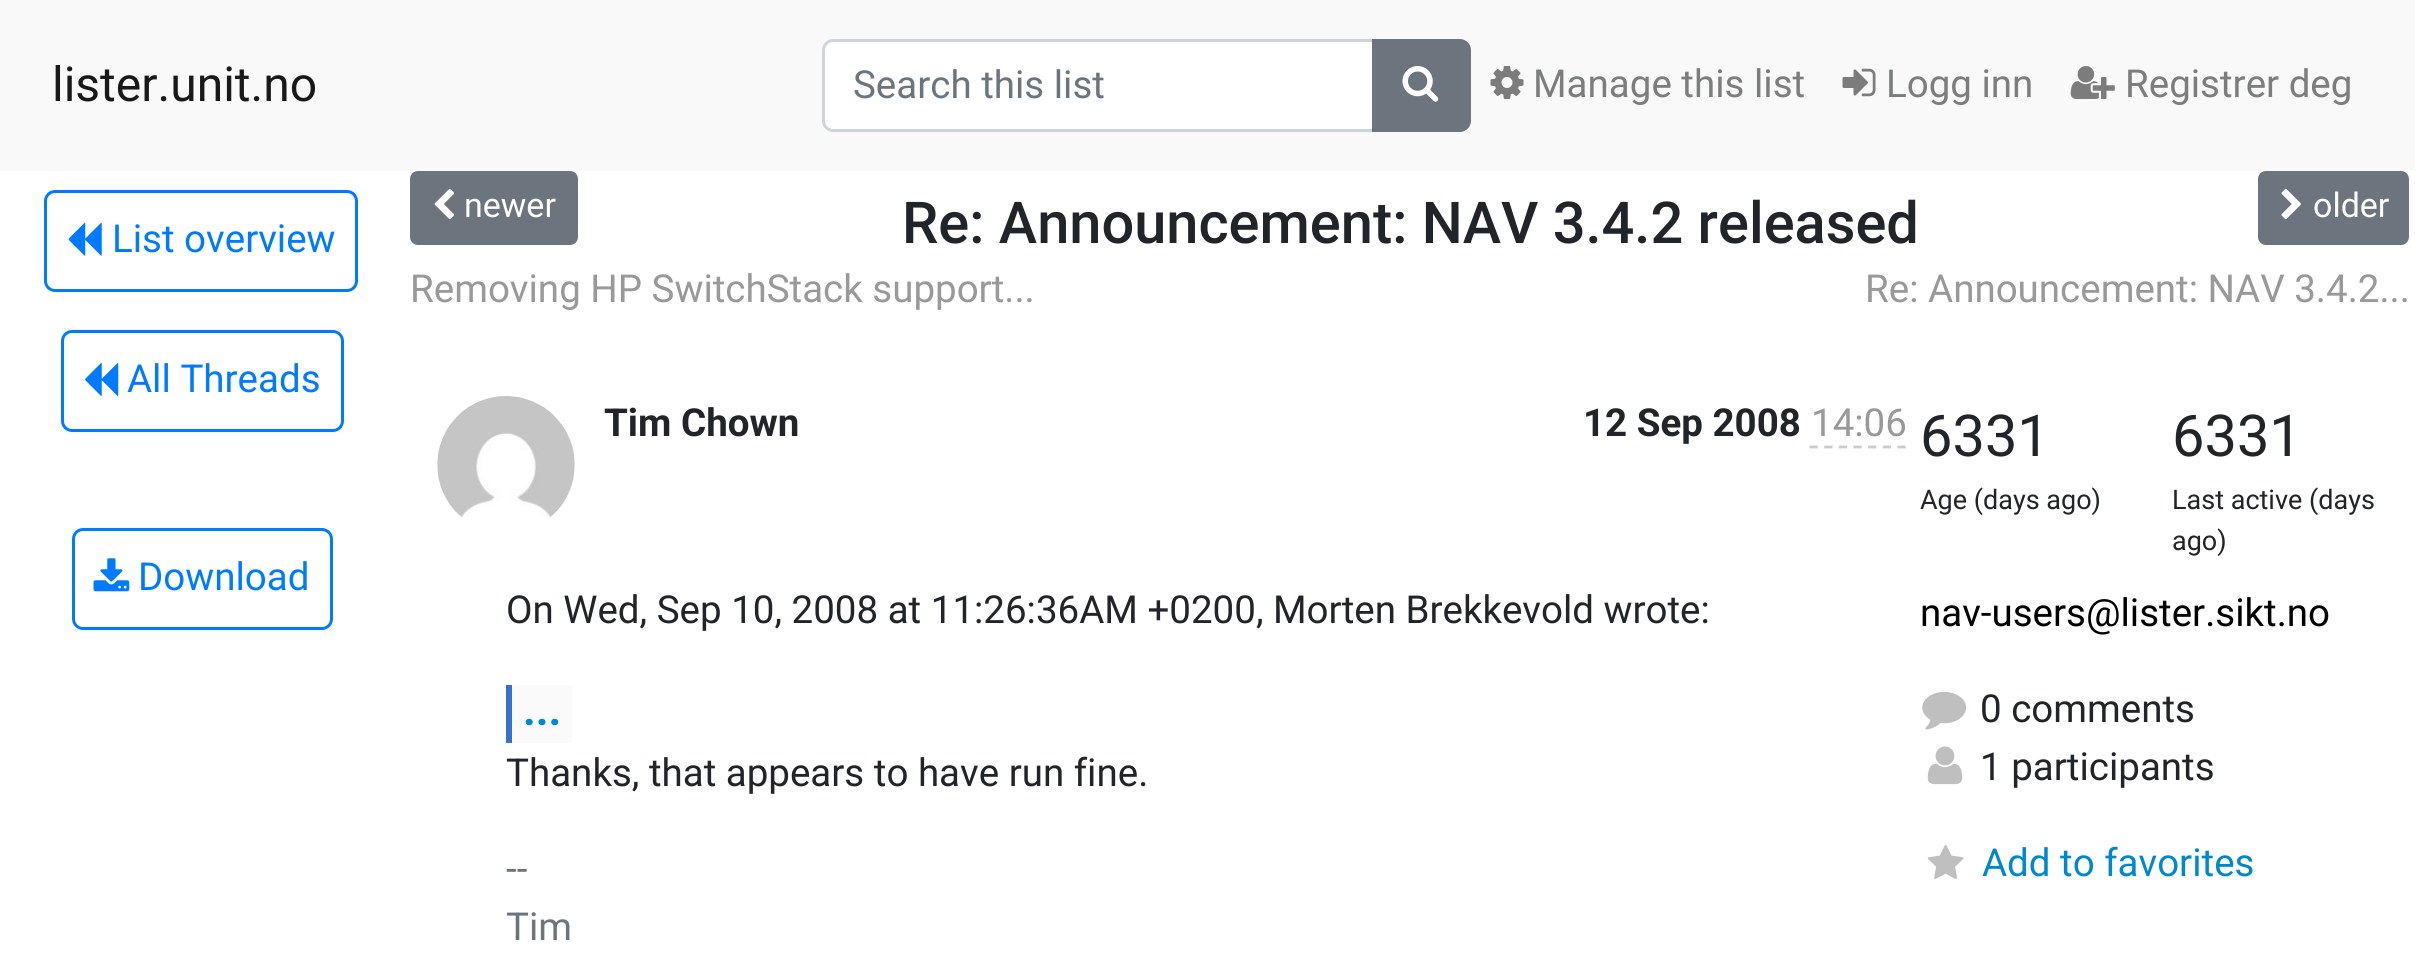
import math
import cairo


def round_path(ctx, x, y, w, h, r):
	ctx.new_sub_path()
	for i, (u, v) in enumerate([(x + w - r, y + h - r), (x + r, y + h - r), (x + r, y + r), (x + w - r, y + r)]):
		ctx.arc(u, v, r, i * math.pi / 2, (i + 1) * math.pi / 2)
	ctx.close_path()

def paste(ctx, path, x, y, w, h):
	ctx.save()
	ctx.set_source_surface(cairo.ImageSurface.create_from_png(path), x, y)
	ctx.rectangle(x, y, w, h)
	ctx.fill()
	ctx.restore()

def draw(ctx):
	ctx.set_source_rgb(1, 1, 1)
	ctx.paint()
	ctx.set_source_rgb(0.973, 0.976, 0.98)
	ctx.rectangle(0, 0, 2415, 171)
	ctx.fill()
	ctx.select_font_face('Roboto')
	ctx.set_font_size(48)
	ctx.set_source_rgb(0.098, 0.098, 0.098)
	ctx.move_to(52, 101)
	ctx.show_text('lister.unit.no')
	ctx.set_source_rgb(1, 1, 1)
	ctx.new_path()
	ctx.move_to(832, 41)
	ctx.line_to(1372, 41)
	ctx.line_to(1372, 129)
	ctx.line_to(832, 129)
	ctx.curve_to(828, 129, 825, 126, 825, 122)
	ctx.line_to(825, 48)
	ctx.curve_to(825, 44, 828, 41, 832, 41)
	ctx.close_path()
	ctx.fill()
	ctx.new_path()
	ctx.move_to(833, 40.5)
	ctx.line_to(1373.5, 40.5)
	ctx.line_to(1373.5, 130.5)
	ctx.line_to(833, 130.5)
	ctx.curve_to(828, 130.5, 823.5, 126, 823.5, 121)
	ctx.line_to(823.5, 50)
	ctx.curve_to(823.5, 45, 828, 40.5, 833, 40.5)
	ctx.close_path()
	ctx.set_source_rgb(0.808, 0.831, 0.855)
	ctx.set_line_width(3)
	ctx.stroke()
	ctx.set_font_size(38.5)
	ctx.set_source_rgb(0.424, 0.459, 0.49)
	ctx.move_to(853, 98)
	ctx.show_text('Search this list')
	ctx.new_path()
	ctx.move_to(1373.5, 40.5)
	ctx.line_to(1460, 40.5)
	ctx.curve_to(1465, 40.5, 1469.5, 45, 1469.5, 50)
	ctx.line_to(1469.5, 121)
	ctx.curve_to(1469.5, 126, 1465, 130.5, 1460, 130.5)
	ctx.line_to(1373.5, 130.5)
	ctx.close_path()
	ctx.fill_preserve()
	ctx.stroke()
	paste(ctx, 'media/1.png', 1402, 66, 37, 36)
	paste(ctx, 'media/2.png', 1490, 66, 34, 33)
	ctx.set_source_rgb(0.486, 0.49, 0.49)
	ctx.move_to(1533, 97)
	ctx.show_text('Manage this list')
	paste(ctx, 'media/3.png', 1842, 68, 34, 29)
	ctx.move_to(1886, 97)
	ctx.show_text('Logg inn')
	paste(ctx, 'media/4.png', 2070, 66, 45, 33)
	ctx.move_to(2125, 97)
	ctx.show_text('Registrer deg')
	round_path(ctx, 45.5, 191.5, 311, 99, 9.5)
	ctx.set_source_rgb(0, 0.482, 1)
	ctx.stroke()
	paste(ctx, 'media/5.png', 68, 222, 34, 34)
	ctx.move_to(112, 252)
	ctx.show_text('List overview')
	round_path(ctx, 62.5, 331.5, 280, 99, 9.5)
	ctx.stroke()
	paste(ctx, 'media/6.png', 85, 363, 34, 33)
	ctx.move_to(127, 392)
	ctx.show_text('All Threads')
	round_path(ctx, 73.5, 529.5, 258, 99, 9.5)
	ctx.stroke()
	paste(ctx, 'media/7.png', 93, 558, 37, 34)
	ctx.move_to(138, 590)
	ctx.show_text('Download')
	ctx.set_source_rgb(0.424, 0.459, 0.49)
	round_path(ctx, 411.5, 172.5, 165, 71, 6.5)
	ctx.fill_preserve()
	ctx.stroke()
	paste(ctx, 'media/8.png', 434, 188, 21, 32)
	ctx.set_font_size(34)
	ctx.set_source_rgb(1, 1, 1)
	ctx.move_to(464, 217)
	ctx.show_text('newer')
	ctx.select_font_face('Roboto Medium')
	ctx.set_font_size(57.75)
	ctx.set_source_rgb(0.129, 0.145, 0.161)
	ctx.move_to(902, 243)
	ctx.show_text('Re: Announcement: NAV 3.4.2 released')
	ctx.set_source_rgb(0.424, 0.459, 0.49)
	round_path(ctx, 2259.5, 172.5, 148, 71, 6.5)
	ctx.fill_preserve()
	ctx.stroke()
	paste(ctx, 'media/9.png', 2281, 188, 20, 32)
	ctx.select_font_face('Roboto')
	ctx.set_font_size(34)
	ctx.set_source_rgb(1, 1, 1)
	ctx.move_to(2313, 217)
	ctx.show_text('older')
	ctx.set_font_size(38.5)
	ctx.set_source_rgb(0.6, 0.6, 0.6)
	ctx.move_to(410, 302)
	ctx.show_text('Removing HP SwitchStack support...')
	ctx.move_to(1865, 302)
	ctx.show_text('Re: Announcement: NAV 3.4.2...')
	paste(ctx, 'media/10.png', 437, 396, 138, 122)
	ctx.select_font_face('Roboto', cairo.FONT_SLANT_NORMAL, cairo.FONT_WEIGHT_BOLD)
	ctx.set_source_rgb(0.129, 0.145, 0.161)
	ctx.move_to(604, 436)
	ctx.show_text('Tim Chown')
	ctx.move_to(1583, 436)
	ctx.show_text('12 Sep 2008')
	ctx.select_font_face('Roboto')
	ctx.set_source_rgb(0.6, 0.6, 0.6)
	ctx.move_to(1811, 436)
	ctx.show_text('14:06')
	ctx.new_path()
	ctx.move_to(1809.5, 447)
	ctx.line_to(1906, 447)
	ctx.set_source_rgb(0.8, 0.8, 0.8)
	ctx.set_line_width(2.8)
	ctx.set_dash([8.25, 6.41])
	ctx.stroke()
	ctx.set_source_rgb(0.129, 0.145, 0.161)
	ctx.move_to(506, 623)
	ctx.show_text('On Wed, Sep 10, 2008 at 11:26:36AM +0200, Morten Brekkevold wrote:')
	ctx.set_source_rgb(0.98, 0.98, 0.98)
	ctx.rectangle(512, 685, 60, 58)
	ctx.fill()
	ctx.select_font_face('Roboto', cairo.FONT_SLANT_NORMAL, cairo.FONT_WEIGHT_BOLD)
	ctx.set_font_size(44)
	ctx.set_source_rgb(0, 0.533, 0.8)
	ctx.move_to(523, 725)
	ctx.show_text('...')
	ctx.set_source_rgb(0.216, 0.443, 0.784)
	ctx.rectangle(506, 685, 6, 58)
	ctx.fill()
	ctx.select_font_face('Roboto')
	ctx.set_font_size(38.5)
	ctx.set_source_rgb(0.129, 0.145, 0.161)
	ctx.move_to(506, 786)
	ctx.show_text('Thanks, that appears to have run fine.')
	ctx.set_source_rgb(0.424, 0.459, 0.49)
	ctx.move_to(506, 882)
	ctx.show_text('--')
	ctx.move_to(506, 940)
	ctx.show_text('Tim')
	ctx.set_font_size(57.75)
	ctx.set_source_rgb(0.129, 0.145, 0.161)
	ctx.move_to(1920, 456)
	ctx.show_text('6331')
	ctx.set_font_size(27)
	ctx.move_to(1920, 509)
	ctx.show_text('Age (days ago)')
	ctx.set_font_size(57.75)
	ctx.move_to(2172, 456)
	ctx.show_text('6331')
	ctx.set_font_size(27)
	ctx.move_to(2172, 509)
	ctx.show_text('Last active (days')
	ctx.move_to(2172, 550)
	ctx.show_text('ago)')
	ctx.set_font_size(38.5)
	ctx.set_source_rgb(0, 0, 0)
	ctx.move_to(1920, 626)
	ctx.show_text('nav-users@lister.sikt.no')
	paste(ctx, 'media/11.png', 1922, 691, 45, 39)
	ctx.set_source_rgb(0.129, 0.145, 0.161)
	ctx.move_to(1980, 722)
	ctx.show_text('0 comments')
	paste(ctx, 'media/12.png', 1927, 746, 36, 39)
	ctx.move_to(1980, 780)
	ctx.show_text('1 participants')
	paste(ctx, 'media/13.png', 1927, 845, 37, 34)
	ctx.set_source_rgb(0, 0.533, 0.8)
	ctx.move_to(1982, 876)
	ctx.show_text('Add to favorites')


surface = cairo.ImageSurface(cairo.FORMAT_RGB24, 2415, 956)
ctx = cairo.Context(surface)
options = cairo.FontOptions()
options.set_hint_metrics(cairo.HINT_METRICS_OFF)
options.set_hint_style(cairo.HINT_STYLE_NONE)
ctx.set_font_options(options)
ctx.set_miter_limit(4)
draw(ctx)
surface.write_to_png('image.png')
